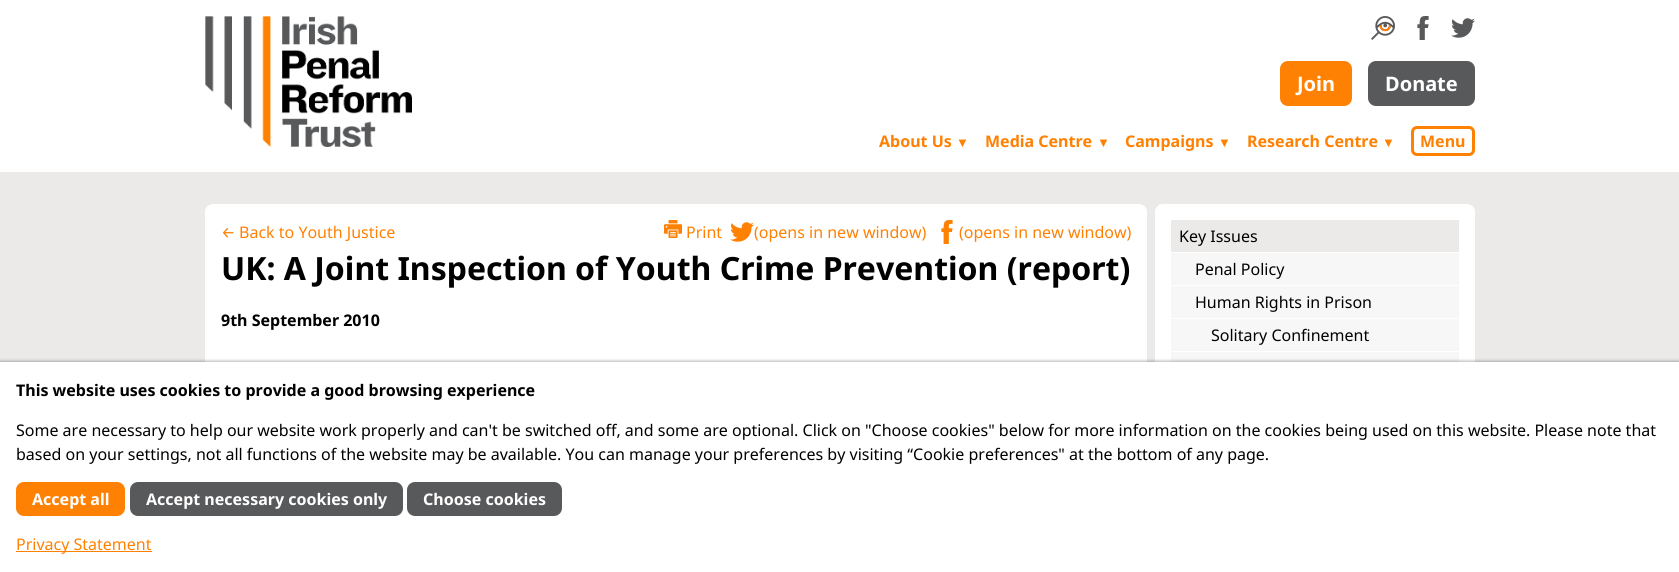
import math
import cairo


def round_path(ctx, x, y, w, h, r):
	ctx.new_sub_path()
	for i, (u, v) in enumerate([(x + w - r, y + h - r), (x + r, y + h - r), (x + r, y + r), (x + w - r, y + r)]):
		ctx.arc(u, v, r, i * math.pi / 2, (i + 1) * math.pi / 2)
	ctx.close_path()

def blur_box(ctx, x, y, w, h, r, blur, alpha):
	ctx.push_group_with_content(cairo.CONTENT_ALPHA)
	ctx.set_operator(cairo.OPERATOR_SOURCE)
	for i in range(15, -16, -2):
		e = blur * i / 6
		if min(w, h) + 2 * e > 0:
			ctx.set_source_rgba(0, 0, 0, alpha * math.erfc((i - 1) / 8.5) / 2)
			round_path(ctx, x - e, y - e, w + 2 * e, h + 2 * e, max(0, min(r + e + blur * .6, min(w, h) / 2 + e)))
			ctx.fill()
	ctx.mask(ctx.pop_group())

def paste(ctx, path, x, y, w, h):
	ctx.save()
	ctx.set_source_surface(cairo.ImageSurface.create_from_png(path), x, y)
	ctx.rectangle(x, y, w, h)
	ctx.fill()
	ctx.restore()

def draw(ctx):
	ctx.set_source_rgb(1, 1, 1)
	ctx.paint()
	paste(ctx, 'media/1.png', 205, 16, 207, 131)
	paste(ctx, 'media/2.png', 1371, 16, 24, 24)
	paste(ctx, 'media/3.png', 1417, 16, 12, 24)
	paste(ctx, 'media/4.png', 1451, 18, 24, 20)
	ctx.set_source_rgb(1, 0.506, 0.012)
	round_path(ctx, 1280, 61, 72, 45, 8)
	ctx.fill()
	ctx.select_font_face('Noto Sans', cairo.FONT_SLANT_NORMAL, cairo.FONT_WEIGHT_BOLD)
	ctx.set_font_size(20)
	ctx.set_source_rgb(1, 1, 1)
	ctx.move_to(1297, 91)
	ctx.show_text('Join')
	ctx.set_source_rgb(0.345, 0.349, 0.357)
	round_path(ctx, 1368, 61, 107, 45, 8)
	ctx.fill()
	ctx.set_source_rgb(1, 1, 1)
	ctx.move_to(1385, 91)
	ctx.show_text('Donate')
	ctx.set_font_size(16)
	ctx.set_source_rgb(1, 0.506, 0.012)
	ctx.move_to(879, 147)
	ctx.show_text('About Us')
	ctx.select_font_face('Liberation Sans', cairo.FONT_SLANT_NORMAL, cairo.FONT_WEIGHT_BOLD)
	ctx.set_font_size(13)
	ctx.move_to(956, 147)
	ctx.show_text('▼')
	ctx.select_font_face('Noto Sans', cairo.FONT_SLANT_NORMAL, cairo.FONT_WEIGHT_BOLD)
	ctx.set_font_size(16)
	ctx.move_to(985, 147)
	ctx.show_text('Media Centre')
	ctx.select_font_face('Liberation Sans', cairo.FONT_SLANT_NORMAL, cairo.FONT_WEIGHT_BOLD)
	ctx.set_font_size(13)
	ctx.move_to(1097, 147)
	ctx.show_text('▼')
	ctx.select_font_face('Noto Sans', cairo.FONT_SLANT_NORMAL, cairo.FONT_WEIGHT_BOLD)
	ctx.set_font_size(16)
	ctx.move_to(1125, 147)
	ctx.show_text('Campaigns')
	ctx.select_font_face('Liberation Sans', cairo.FONT_SLANT_NORMAL, cairo.FONT_WEIGHT_BOLD)
	ctx.set_font_size(13)
	ctx.move_to(1218, 147)
	ctx.show_text('▼')
	ctx.select_font_face('Noto Sans', cairo.FONT_SLANT_NORMAL, cairo.FONT_WEIGHT_BOLD)
	ctx.set_font_size(16)
	ctx.move_to(1247, 147)
	ctx.show_text('Research Centre')
	ctx.select_font_face('Liberation Sans', cairo.FONT_SLANT_NORMAL, cairo.FONT_WEIGHT_BOLD)
	ctx.set_font_size(13)
	ctx.move_to(1382, 147)
	ctx.show_text('▼')
	round_path(ctx, 1412.5, 127.5, 61, 27, 4.5)
	ctx.set_line_width(3)
	ctx.stroke()
	ctx.select_font_face('Noto Sans', cairo.FONT_SLANT_NORMAL, cairo.FONT_WEIGHT_BOLD)
	ctx.set_font_size(16)
	ctx.move_to(1420, 147)
	ctx.show_text('Menu')
	ctx.set_source_rgb(0.922, 0.914, 0.914)
	ctx.rectangle(0, 172, 1679, 190)
	ctx.fill()
	ctx.set_source_rgb(1, 1, 1)
	round_path(ctx, 205, 204, 942, 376, 8)
	ctx.fill()
	ctx.select_font_face('Fira Sans')
	ctx.set_source_rgb(1, 0.506, 0.012)
	ctx.move_to(221, 238)
	ctx.show_text('←')
	ctx.select_font_face('Noto Sans')
	ctx.move_to(239, 238)
	ctx.show_text('Back to Youth Justice')
	paste(ctx, 'media/5.png', 664, 220, 18, 18)
	ctx.move_to(686, 238)
	ctx.show_text('Print')
	paste(ctx, 'media/6.png', 730, 222, 24, 20)
	ctx.move_to(754, 238)
	ctx.show_text('(opens in new window)')
	paste(ctx, 'media/7.png', 941, 220, 12, 24)
	ctx.move_to(959, 238)
	ctx.show_text('(opens in new window)')
	ctx.select_font_face('Noto Sans', cairo.FONT_SLANT_NORMAL, cairo.FONT_WEIGHT_BOLD)
	ctx.set_font_size(32)
	ctx.set_source_rgb(0, 0, 0)
	ctx.move_to(221, 280)
	ctx.show_text('UK: A Joint Inspection of Youth Crime Prevention (report)')
	ctx.set_font_size(16)
	ctx.move_to(221, 326)
	ctx.show_text('9th September 2010')
	ctx.set_source_rgb(1, 1, 1)
	round_path(ctx, 1155, 204, 320, 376, 8)
	ctx.fill()
	ctx.set_source_rgb(0.922, 0.914, 0.914)
	ctx.rectangle(1171, 220, 288, 32)
	ctx.fill()
	ctx.select_font_face('Noto Sans')
	ctx.set_source_rgb(0, 0, 0)
	ctx.move_to(1179, 242)
	ctx.show_text('Key Issues')
	ctx.set_source_rgb(0.969, 0.965, 0.965)
	ctx.rectangle(1171, 253, 288, 32)
	ctx.fill()
	ctx.set_source_rgb(0, 0, 0)
	ctx.move_to(1195, 275)
	ctx.show_text('Penal Policy')
	ctx.set_source_rgb(0.969, 0.965, 0.965)
	ctx.rectangle(1171, 286, 288, 32)
	ctx.fill()
	ctx.set_source_rgb(0, 0, 0)
	ctx.move_to(1195, 308)
	ctx.show_text('Human Rights in Prison')
	ctx.set_source_rgb(0.969, 0.965, 0.965)
	ctx.rectangle(1171, 319, 288, 32)
	ctx.fill()
	ctx.set_source_rgb(0, 0, 0)
	ctx.move_to(1211, 341)
	ctx.show_text('Solitary Confinement')
	ctx.set_source_rgb(0.969, 0.965, 0.965)
	ctx.rectangle(1171, 352, 288, 10)
	ctx.fill()
	ctx.set_source_rgb(0, 0, 0)
	blur_box(ctx, 0, 361, 1679, 210, 0, 1.5, 0.3)
	ctx.set_source_rgb(1, 1, 1)
	ctx.rectangle(0, 362, 1679, 210)
	ctx.fill()
	ctx.select_font_face('Noto Sans', cairo.FONT_SLANT_NORMAL, cairo.FONT_WEIGHT_BOLD)
	ctx.set_source_rgb(0, 0, 0)
	ctx.move_to(16, 396)
	ctx.show_text('This website uses cookies to provide a good browsing experience')
	ctx.select_font_face('Noto Sans')
	ctx.move_to(16, 436)
	ctx.show_text('Some are necessary to help our website work properly and can\'t be switched off, and some are optional. Click on "Choose cookies" below for more information on the cookies being used on this website. Please note that')
	ctx.move_to(16, 460)
	ctx.show_text('based on your settings, not all functions of the website may be available. You can manage your preferences by visiting “Cookie preferences" at the bottom of any page.')
	ctx.set_source_rgb(1, 0.506, 0.012)
	round_path(ctx, 16, 482, 109, 34, 8)
	ctx.fill()
	ctx.select_font_face('Noto Sans', cairo.FONT_SLANT_NORMAL, cairo.FONT_WEIGHT_BOLD)
	ctx.set_source_rgb(1, 1, 1)
	ctx.move_to(32, 505)
	ctx.show_text('Accept all')
	ctx.set_source_rgb(0.345, 0.349, 0.357)
	round_path(ctx, 130, 482, 273, 34, 8)
	ctx.fill()
	ctx.set_source_rgb(1, 1, 1)
	ctx.move_to(146, 505)
	ctx.show_text('Accept necessary cookies only')
	ctx.set_source_rgb(0.345, 0.349, 0.357)
	round_path(ctx, 407, 482, 155, 34, 8)
	ctx.fill()
	ctx.set_source_rgb(1, 1, 1)
	ctx.move_to(423, 505)
	ctx.show_text('Choose cookies')
	ctx.set_source_rgb(1, 0.506, 0.012)
	ctx.rectangle(16, 551, 136, 1)
	ctx.fill()
	ctx.select_font_face('Noto Sans')
	ctx.move_to(16, 550)
	ctx.show_text('Privacy Statement')


surface = cairo.ImageSurface(cairo.FORMAT_RGB24, 1679, 572)
ctx = cairo.Context(surface)
options = cairo.FontOptions()
options.set_hint_metrics(cairo.HINT_METRICS_OFF)
options.set_hint_style(cairo.HINT_STYLE_NONE)
ctx.set_font_options(options)
ctx.set_miter_limit(4)
draw(ctx)
surface.write_to_png('image.png')
